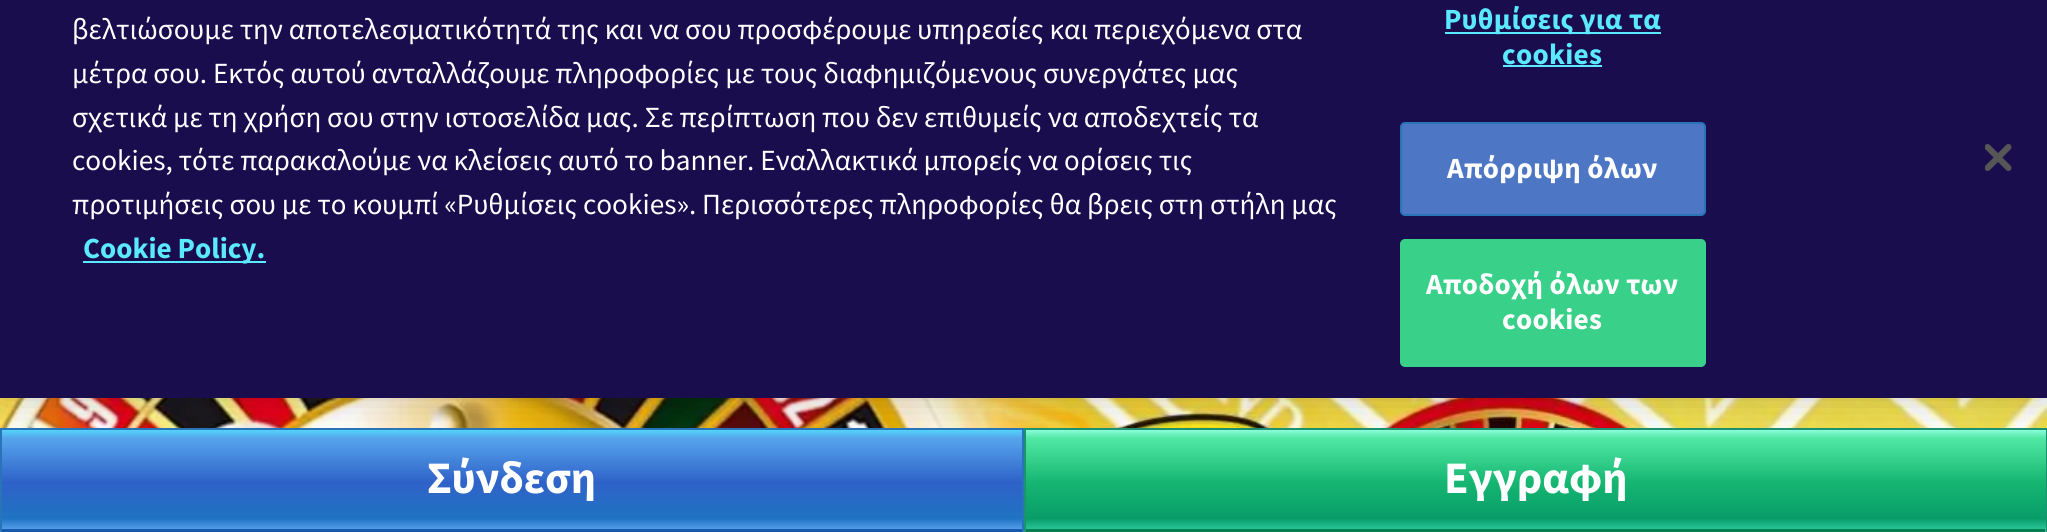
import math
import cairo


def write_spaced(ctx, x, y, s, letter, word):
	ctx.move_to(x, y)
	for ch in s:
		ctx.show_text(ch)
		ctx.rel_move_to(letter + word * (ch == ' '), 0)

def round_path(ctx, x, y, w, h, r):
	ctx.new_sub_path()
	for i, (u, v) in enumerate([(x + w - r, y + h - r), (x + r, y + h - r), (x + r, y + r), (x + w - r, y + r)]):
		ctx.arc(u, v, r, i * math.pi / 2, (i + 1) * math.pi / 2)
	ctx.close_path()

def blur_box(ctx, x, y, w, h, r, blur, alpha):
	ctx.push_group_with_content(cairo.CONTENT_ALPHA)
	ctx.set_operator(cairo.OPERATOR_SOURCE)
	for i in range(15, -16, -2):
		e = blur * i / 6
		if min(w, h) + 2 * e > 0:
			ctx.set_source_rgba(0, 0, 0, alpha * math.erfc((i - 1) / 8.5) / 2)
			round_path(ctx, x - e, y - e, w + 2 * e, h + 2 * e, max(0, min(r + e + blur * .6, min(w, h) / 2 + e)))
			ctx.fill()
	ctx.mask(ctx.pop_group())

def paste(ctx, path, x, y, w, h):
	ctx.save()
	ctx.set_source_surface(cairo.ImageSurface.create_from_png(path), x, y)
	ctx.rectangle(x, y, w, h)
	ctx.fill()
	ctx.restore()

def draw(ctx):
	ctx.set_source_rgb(1, 1, 1)
	ctx.paint()
	paste(ctx, 'media/2.png', 0, 398, 2047, 30)
	gradient = cairo.LinearGradient(512, 430, 512, 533)
	gradient.add_color_stop_rgba(0, 0.333, 0.839, 0.984, 1)
	gradient.add_color_stop_rgba(0.08, 0.337, 0.647, 0.929, 1)
	gradient.add_color_stop_rgba(0.51, 0.184, 0.384, 0.784, 1)
	gradient.add_color_stop_rgba(0.86, 0.122, 0.451, 0.765, 1)
	gradient.add_color_stop_rgba(1, 0.396, 0.675, 0.969, 1)
	ctx.set_source(gradient)
	ctx.rectangle(2, 430, 1020, 99)
	ctx.fill()
	ctx.set_source_rgb(0.094, 0.349, 0.675)
	ctx.rectangle(2, 529, 1020, 3)
	ctx.fill()
	ctx.rectangle(1, 429, 1022, 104)
	ctx.set_source_rgb(0.161, 0.455, 0.725)
	ctx.stroke()
	gradient = cairo.LinearGradient(1536, 430, 1536, 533)
	gradient.add_color_stop_rgba(0, 0.549, 1, 0.863, 1)
	gradient.add_color_stop_rgba(0.08, 0.322, 0.91, 0.651, 1)
	gradient.add_color_stop_rgba(0.51, 0.082, 0.714, 0.443, 1)
	gradient.add_color_stop_rgba(0.86, 0.035, 0.612, 0.416, 1)
	gradient.add_color_stop_rgba(1, 0.2, 0.831, 0.651, 1)
	ctx.set_source(gradient)
	ctx.rectangle(1026, 430, 1020, 102)
	ctx.fill()
	ctx.set_source_rgb(0.02, 0.498, 0.314)
	ctx.rectangle(1026, 529, 1019, 3)
	ctx.fill()
	ctx.rectangle(1025, 429, 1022, 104)
	ctx.set_source_rgb(0.11, 0.573, 0.443)
	ctx.stroke()
	ctx.set_source_rgb(0, 0, 0)
	blur_box(ctx, 0, -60, 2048, 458, 0, 20, 0.2)
	ctx.set_source_rgb(0.098, 0.051, 0.306)
	ctx.rectangle(0, 0, 2047, 398)
	ctx.fill()
	ctx.select_font_face('Source Sans Pro')
	ctx.set_font_size(29.25)
	ctx.set_source_rgb(1, 1, 1)
	for x, y, s in [
		(72, 39, 'βελτιώσουμε την αποτελεσματικότητά της και να σου προσφέρουμε υπηρεσίες και περιεχόμενα στα'),
		(72, 83, 'μέτρα σου. Εκτός αυτού ανταλλάζουμε πληροφορίες με τους διαφημιζόμενους συνεργάτες μας'),
		(72, 127, 'σχετικά με τη χρήση σου στην ιστοσελίδα μας. Σε περίπτωση που δεν επιθυμείς να αποδεχτείς τα'),
		(72, 170, 'cookies, τότε παρακαλούμε να κλείσεις αυτό το banner. Εναλλακτικά μπορείς να ορίσεις τις'),
		(72, 214, 'προτιμήσεις σου με το κουμπί «Ρυθμίσεις cookies». Περισσότερες πληροφορίες θα βρεις στη στήλη μας'),
	]:
		ctx.move_to(x, y)
		ctx.show_text(s)
	ctx.set_source_rgb(0.353, 0.914, 0.996)
	ctx.rectangle(83, 261, 183, 2)
	ctx.fill()
	ctx.select_font_face('Source Sans Pro', cairo.FONT_SLANT_NORMAL, cairo.FONT_WEIGHT_BOLD)
	ctx.move_to(83, 258)
	ctx.show_text('Cookie Policy.')
	ctx.rectangle(1445, 32, 216, 2)
	ctx.fill()
	write_spaced(ctx, 1444, 29, 'Ρυθμίσεις για τα', 0.25, 0)
	write_spaced(ctx, 1502, 64, 'cookies', 0.25, 0)
	ctx.rectangle(1503, 65, 99, 2)
	ctx.fill()
	ctx.set_source_rgb(0.302, 0.463, 0.773)
	round_path(ctx, 1401, 123, 304, 92, 4)
	ctx.fill_preserve()
	ctx.set_source_rgb(0.161, 0.455, 0.725)
	ctx.stroke()
	ctx.set_source_rgb(1, 1, 1)
	write_spaced(ctx, 1447, 178, 'Απόρριψη όλων', 0.25, 0)
	ctx.set_source_rgb(0.224, 0.816, 0.537)
	round_path(ctx, 1401, 240, 304, 126, 4)
	ctx.fill_preserve()
	ctx.stroke()
	ctx.set_source_rgb(1, 1, 1)
	write_spaced(ctx, 1426, 294, 'Αποδοχή όλων των', 0.25, 0)
	write_spaced(ctx, 1502, 329, 'cookies', 0.25, 0)
	paste(ctx, 'media/1.png', 1985, 144, 27, 27)
	ctx.set_font_size(45)
	ctx.move_to(427, 493)
	ctx.show_text('Σύνδεση')
	ctx.move_to(1444, 493)
	ctx.show_text('Εγγραφή')


surface = cairo.ImageSurface(cairo.FORMAT_RGB24, 2047, 532)
ctx = cairo.Context(surface)
options = cairo.FontOptions()
options.set_hint_metrics(cairo.HINT_METRICS_OFF)
options.set_hint_style(cairo.HINT_STYLE_NONE)
ctx.set_font_options(options)
ctx.set_miter_limit(4)
draw(ctx)
surface.write_to_png('image.png')
